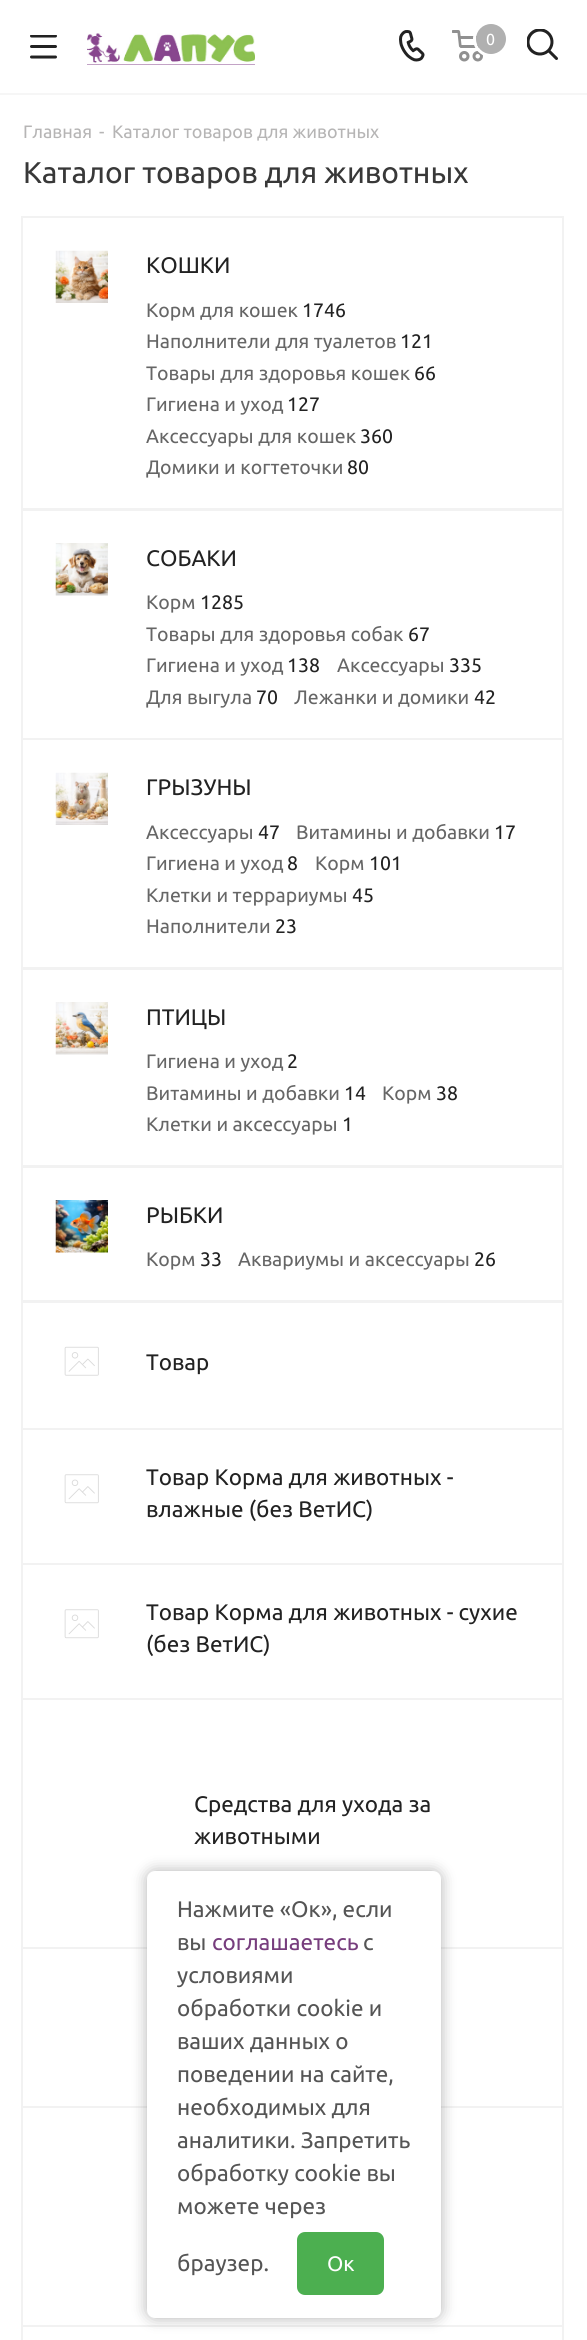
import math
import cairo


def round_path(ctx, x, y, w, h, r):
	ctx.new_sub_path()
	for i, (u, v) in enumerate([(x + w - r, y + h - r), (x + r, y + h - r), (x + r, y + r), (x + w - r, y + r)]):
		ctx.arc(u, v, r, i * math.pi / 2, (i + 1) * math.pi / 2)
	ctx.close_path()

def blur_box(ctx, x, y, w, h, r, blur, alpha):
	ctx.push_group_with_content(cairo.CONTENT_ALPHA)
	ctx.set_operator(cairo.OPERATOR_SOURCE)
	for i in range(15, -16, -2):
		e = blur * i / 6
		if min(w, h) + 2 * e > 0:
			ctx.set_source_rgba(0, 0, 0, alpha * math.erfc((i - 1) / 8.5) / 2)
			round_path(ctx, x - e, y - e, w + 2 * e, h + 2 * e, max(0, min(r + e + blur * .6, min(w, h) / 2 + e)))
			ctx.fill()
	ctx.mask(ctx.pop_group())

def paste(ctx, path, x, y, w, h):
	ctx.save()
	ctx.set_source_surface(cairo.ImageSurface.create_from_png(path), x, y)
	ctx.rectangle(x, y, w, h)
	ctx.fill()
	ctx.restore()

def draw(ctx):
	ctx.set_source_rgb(1, 1, 1)
	ctx.paint()
	ctx.set_source_rgb(0.961, 0.961, 0.961)
	ctx.rectangle(0, 93, 587, 2)
	ctx.fill()
	paste(ctx, 'media/1.png', 30, 35, 27, 24)
	ctx.set_source_rgb(0.529, 0.275, 0.553)
	ctx.rectangle(87, 64, 168, 1)
	ctx.fill()
	paste(ctx, 'media/2.png', 87, 30, 168, 35)
	paste(ctx, 'media/3.png', 399, 30, 26, 32)
	paste(ctx, 'media/4.png', 452, 30, 31, 32)
	ctx.arc(491, 39, 16.5, 0, 2 * math.pi)
	ctx.set_source_rgb(1, 1, 1)
	ctx.set_line_width(3)
	ctx.stroke()
	ctx.set_source_rgb(0.69, 0.69, 0.69)
	ctx.arc(491, 39, 15, 0, 2 * math.pi)
	ctx.fill()
	ctx.select_font_face('Ubuntu')
	ctx.set_font_size(16)
	ctx.set_source_rgb(1, 1, 1)
	ctx.move_to(486, 45)
	ctx.show_text('0')
	paste(ctx, 'media/5.png', 527, 29, 31, 31)
	ctx.set_font_size(18)
	ctx.set_source_rgb(0.714, 0.71, 0.71)
	for x, y, s in [
		(23, 138, 'Главная'),
		(99, 138, '-'),
		(112, 138, 'Каталог товаров для животных'),
	]:
		ctx.move_to(x, y)
		ctx.show_text(s)
	ctx.set_font_size(30)
	ctx.set_source_rgb(0.22, 0.22, 0.22)
	ctx.move_to(23, 183)
	ctx.show_text('Каталог товаров для животных')
	ctx.rectangle(22, 217, 541, 292)
	ctx.set_source_rgb(0.949, 0.949, 0.949)
	ctx.set_line_width(2)
	ctx.stroke()
	paste(ctx, 'media/6.png', 55, 250, 53, 53)
	ctx.set_font_size(22.5)
	ctx.set_source_rgb(0.133, 0.133, 0.133)
	ctx.move_to(146, 273)
	ctx.show_text('КОШКИ')
	ctx.set_font_size(19.5)
	ctx.set_source_rgb(0.4, 0.4, 0.4)
	ctx.move_to(146, 317)
	ctx.show_text('Корм для кошек')
	ctx.set_source_rgb(0.133, 0.133, 0.133)
	ctx.move_to(302, 317)
	ctx.show_text('1746')
	ctx.set_source_rgb(0.4, 0.4, 0.4)
	ctx.move_to(146, 348)
	ctx.show_text('Наполнители для туалетов')
	ctx.set_source_rgb(0.133, 0.133, 0.133)
	ctx.move_to(400, 348)
	ctx.show_text('121')
	ctx.set_source_rgb(0.4, 0.4, 0.4)
	ctx.move_to(146, 380)
	ctx.show_text('Товары для здоровья кошек')
	ctx.set_source_rgb(0.133, 0.133, 0.133)
	ctx.move_to(414, 380)
	ctx.show_text('66')
	ctx.set_source_rgb(0.4, 0.4, 0.4)
	ctx.move_to(146, 411)
	ctx.show_text('Гигиена и уход')
	ctx.set_source_rgb(0.133, 0.133, 0.133)
	ctx.move_to(287, 411)
	ctx.show_text('127')
	ctx.set_source_rgb(0.4, 0.4, 0.4)
	ctx.move_to(146, 443)
	ctx.show_text('Аксессуары для кошек')
	ctx.set_source_rgb(0.133, 0.133, 0.133)
	ctx.move_to(360, 443)
	ctx.show_text('360')
	ctx.save()
	ctx.rectangle(146, 251, 384, 232)
	ctx.clip()
	ctx.set_source_rgb(0.4, 0.4, 0.4)
	ctx.move_to(146, 474)
	ctx.show_text('Домики и когтеточки')
	ctx.restore()
	ctx.move_to(347, 474)
	ctx.show_text('80')
	ctx.rectangle(22, 510, 541, 229)
	ctx.set_source_rgb(0.949, 0.949, 0.949)
	ctx.stroke()
	paste(ctx, 'media/7.png', 55, 543, 53, 53)
	ctx.set_font_size(22.5)
	ctx.set_source_rgb(0.133, 0.133, 0.133)
	ctx.move_to(146, 566)
	ctx.show_text('СОБАКИ')
	ctx.set_font_size(19.5)
	ctx.set_source_rgb(0.4, 0.4, 0.4)
	ctx.move_to(146, 609)
	ctx.show_text('Корм')
	ctx.set_source_rgb(0.133, 0.133, 0.133)
	ctx.move_to(200, 609)
	ctx.show_text('1285')
	ctx.set_source_rgb(0.4, 0.4, 0.4)
	ctx.move_to(146, 641)
	ctx.show_text('Товары для здоровья собак')
	ctx.set_source_rgb(0.133, 0.133, 0.133)
	ctx.move_to(408, 641)
	ctx.show_text('67')
	ctx.set_source_rgb(0.4, 0.4, 0.4)
	ctx.move_to(146, 672)
	ctx.show_text('Гигиена и уход')
	ctx.set_source_rgb(0.133, 0.133, 0.133)
	ctx.move_to(287, 672)
	ctx.show_text('138')
	ctx.set_source_rgb(0.4, 0.4, 0.4)
	ctx.move_to(337, 672)
	ctx.show_text('Аксессуары')
	ctx.set_source_rgb(0.133, 0.133, 0.133)
	ctx.move_to(449, 672)
	ctx.show_text('335')
	ctx.save()
	ctx.rectangle(146, 543, 384, 170)
	ctx.clip()
	ctx.set_source_rgb(0.4, 0.4, 0.4)
	ctx.move_to(146, 704)
	ctx.show_text('Для выгула')
	ctx.restore()
	ctx.move_to(256, 704)
	ctx.show_text('70')
	ctx.set_source_rgb(0.4, 0.4, 0.4)
	ctx.move_to(294, 704)
	ctx.show_text('Лежанки и домики')
	ctx.set_source_rgb(0.133, 0.133, 0.133)
	ctx.move_to(474, 704)
	ctx.show_text('42')
	ctx.rectangle(22, 739, 541, 229)
	ctx.set_source_rgb(0.949, 0.949, 0.949)
	ctx.stroke()
	paste(ctx, 'media/8.png', 55, 772, 53, 53)
	ctx.set_font_size(22.5)
	ctx.set_source_rgb(0.133, 0.133, 0.133)
	ctx.move_to(146, 795)
	ctx.show_text('ГРЫЗУНЫ')
	ctx.set_font_size(19.5)
	ctx.set_source_rgb(0.4, 0.4, 0.4)
	ctx.move_to(146, 839)
	ctx.show_text('Аксессуары')
	ctx.set_source_rgb(0.133, 0.133, 0.133)
	ctx.move_to(258, 839)
	ctx.show_text('47')
	ctx.set_source_rgb(0.4, 0.4, 0.4)
	ctx.move_to(296, 839)
	ctx.show_text('Витамины и добавки')
	ctx.set_source_rgb(0.133, 0.133, 0.133)
	ctx.move_to(494, 839)
	ctx.show_text('17')
	ctx.set_source_rgb(0.4, 0.4, 0.4)
	ctx.move_to(146, 870)
	ctx.show_text('Гигиена и уход')
	ctx.set_source_rgb(0.133, 0.133, 0.133)
	ctx.move_to(287, 870)
	ctx.show_text('8')
	ctx.set_source_rgb(0.4, 0.4, 0.4)
	ctx.move_to(315, 870)
	ctx.show_text('Корм')
	ctx.set_source_rgb(0.133, 0.133, 0.133)
	ctx.move_to(369, 870)
	ctx.show_text('101')
	ctx.set_source_rgb(0.4, 0.4, 0.4)
	ctx.move_to(146, 902)
	ctx.show_text('Клетки и террариумы')
	ctx.set_source_rgb(0.133, 0.133, 0.133)
	ctx.move_to(352, 902)
	ctx.show_text('45')
	ctx.set_source_rgb(0.4, 0.4, 0.4)
	ctx.move_to(146, 933)
	ctx.show_text('Наполнители')
	ctx.set_source_rgb(0.133, 0.133, 0.133)
	ctx.move_to(275, 933)
	ctx.show_text('23')
	ctx.rectangle(22, 969, 541, 197)
	ctx.set_source_rgb(0.949, 0.949, 0.949)
	ctx.stroke()
	paste(ctx, 'media/9.png', 55, 1002, 53, 53)
	ctx.set_font_size(22.5)
	ctx.set_source_rgb(0.133, 0.133, 0.133)
	ctx.move_to(146, 1025)
	ctx.show_text('ПТИЦЫ')
	ctx.set_font_size(19.5)
	ctx.set_source_rgb(0.4, 0.4, 0.4)
	ctx.move_to(146, 1068)
	ctx.show_text('Гигиена и уход')
	ctx.set_source_rgb(0.133, 0.133, 0.133)
	ctx.move_to(287, 1068)
	ctx.show_text('2')
	ctx.set_source_rgb(0.4, 0.4, 0.4)
	ctx.move_to(146, 1100)
	ctx.show_text('Витамины и добавки')
	ctx.set_source_rgb(0.133, 0.133, 0.133)
	ctx.move_to(344, 1100)
	ctx.show_text('14')
	ctx.set_source_rgb(0.4, 0.4, 0.4)
	ctx.move_to(382, 1100)
	ctx.show_text('Корм')
	ctx.set_source_rgb(0.133, 0.133, 0.133)
	ctx.move_to(436, 1100)
	ctx.show_text('38')
	ctx.set_source_rgb(0.4, 0.4, 0.4)
	ctx.move_to(146, 1131)
	ctx.show_text('Клетки и аксессуары')
	ctx.set_source_rgb(0.133, 0.133, 0.133)
	ctx.move_to(342, 1131)
	ctx.show_text('1')
	ctx.rectangle(22, 1167, 541, 134)
	ctx.set_source_rgb(0.949, 0.949, 0.949)
	ctx.stroke()
	paste(ctx, 'media/10.png', 55, 1200, 53, 53)
	ctx.set_font_size(22.5)
	ctx.set_source_rgb(0.133, 0.133, 0.133)
	ctx.move_to(146, 1223)
	ctx.show_text('РЫБКИ')
	ctx.set_font_size(19.5)
	ctx.set_source_rgb(0.4, 0.4, 0.4)
	ctx.move_to(146, 1266)
	ctx.show_text('Корм')
	ctx.set_source_rgb(0.133, 0.133, 0.133)
	ctx.move_to(200, 1266)
	ctx.show_text('33')
	ctx.set_source_rgb(0.4, 0.4, 0.4)
	ctx.move_to(238, 1266)
	ctx.show_text('Аквариумы и аксессуары')
	ctx.set_source_rgb(0.133, 0.133, 0.133)
	ctx.move_to(474, 1266)
	ctx.show_text('26')
	ctx.rectangle(22, 1302, 541, 127)
	ctx.set_source_rgb(0.949, 0.949, 0.949)
	ctx.stroke()
	paste(ctx, 'media/11.png', 64, 1346, 35, 30)
	ctx.set_font_size(22.5)
	ctx.set_source_rgb(0.133, 0.133, 0.133)
	ctx.move_to(146, 1370)
	ctx.show_text('Товар')
	ctx.rectangle(22, 1429, 541, 135)
	ctx.set_source_rgb(0.949, 0.949, 0.949)
	ctx.stroke()
	paste(ctx, 'media/12.png', 64, 1474, 35, 30)
	ctx.set_source_rgb(0.133, 0.133, 0.133)
	ctx.move_to(146, 1485)
	ctx.show_text('Товар Корма для животных -')
	ctx.move_to(146, 1517)
	ctx.show_text('влажные (без ВетИС)')
	ctx.rectangle(22, 1564, 541, 135)
	ctx.set_source_rgb(0.949, 0.949, 0.949)
	ctx.stroke()
	paste(ctx, 'media/12.png', 64, 1609, 35, 30)
	ctx.set_source_rgb(0.133, 0.133, 0.133)
	ctx.move_to(146, 1620)
	ctx.show_text('Товар Корма для животных - сухие')
	ctx.move_to(146, 1652)
	ctx.show_text('(без ВетИС)')
	ctx.rectangle(22, 1699, 541, 249)
	ctx.set_source_rgb(0.949, 0.949, 0.949)
	ctx.stroke()
	ctx.set_source_rgb(0.133, 0.133, 0.133)
	ctx.move_to(194, 1812)
	ctx.show_text('Средства для ухода за')
	ctx.move_to(194, 1844)
	ctx.show_text('животными')
	ctx.rectangle(22, 1948, 541, 159)
	ctx.set_source_rgb(0.949, 0.949, 0.949)
	ctx.stroke()
	ctx.rectangle(22, 2107, 541, 219)
	ctx.stroke()
	ctx.rectangle(22, 2326, 541, 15)
	ctx.stroke()
	ctx.set_source_rgb(0, 0, 0)
	blur_box(ctx, 147, 1871, 294, 447, 8, 7.5, 0.3)
	ctx.set_source_rgb(1, 1, 1)
	round_path(ctx, 147, 1871, 294, 447, 8)
	ctx.fill()
	ctx.set_source_rgb(0.333, 0.333, 0.333)
	ctx.move_to(177, 1917)
	ctx.show_text('Нажмите «Ок», если')
	ctx.move_to(177, 1950)
	ctx.show_text('вы')
	ctx.set_source_rgb(0.467, 0.239, 0.49)
	ctx.move_to(212, 1950)
	ctx.show_text('соглашаетесь')
	ctx.set_source_rgb(0.333, 0.333, 0.333)
	for x, y, s in [
		(363, 1950, 'с'),
		(177, 1983, 'условиями'),
		(177, 2016, 'обработки cookie и'),
		(177, 2049, 'ваших данных о'),
		(177, 2082, 'поведении на сайте,'),
		(177, 2115, 'необходимых для'),
		(177, 2148, 'аналитики. Запретить'),
		(177, 2181, 'обработку cookie вы'),
		(177, 2214, 'можете через'),
		(177, 2271, 'браузер.'),
	]:
		ctx.move_to(x, y)
		ctx.show_text(s)
	ctx.set_source_rgb(0.298, 0.686, 0.314)
	round_path(ctx, 297, 2232, 87, 63, 8)
	ctx.fill()
	ctx.set_font_size(21)
	ctx.set_source_rgb(1, 1, 1)
	ctx.move_to(327, 2271)
	ctx.show_text('Ок')


surface = cairo.ImageSurface(cairo.FORMAT_RGB24, 587, 2340)
ctx = cairo.Context(surface)
options = cairo.FontOptions()
options.set_hint_metrics(cairo.HINT_METRICS_OFF)
options.set_hint_style(cairo.HINT_STYLE_NONE)
ctx.set_font_options(options)
ctx.set_miter_limit(4)
draw(ctx)
surface.write_to_png('image.png')
